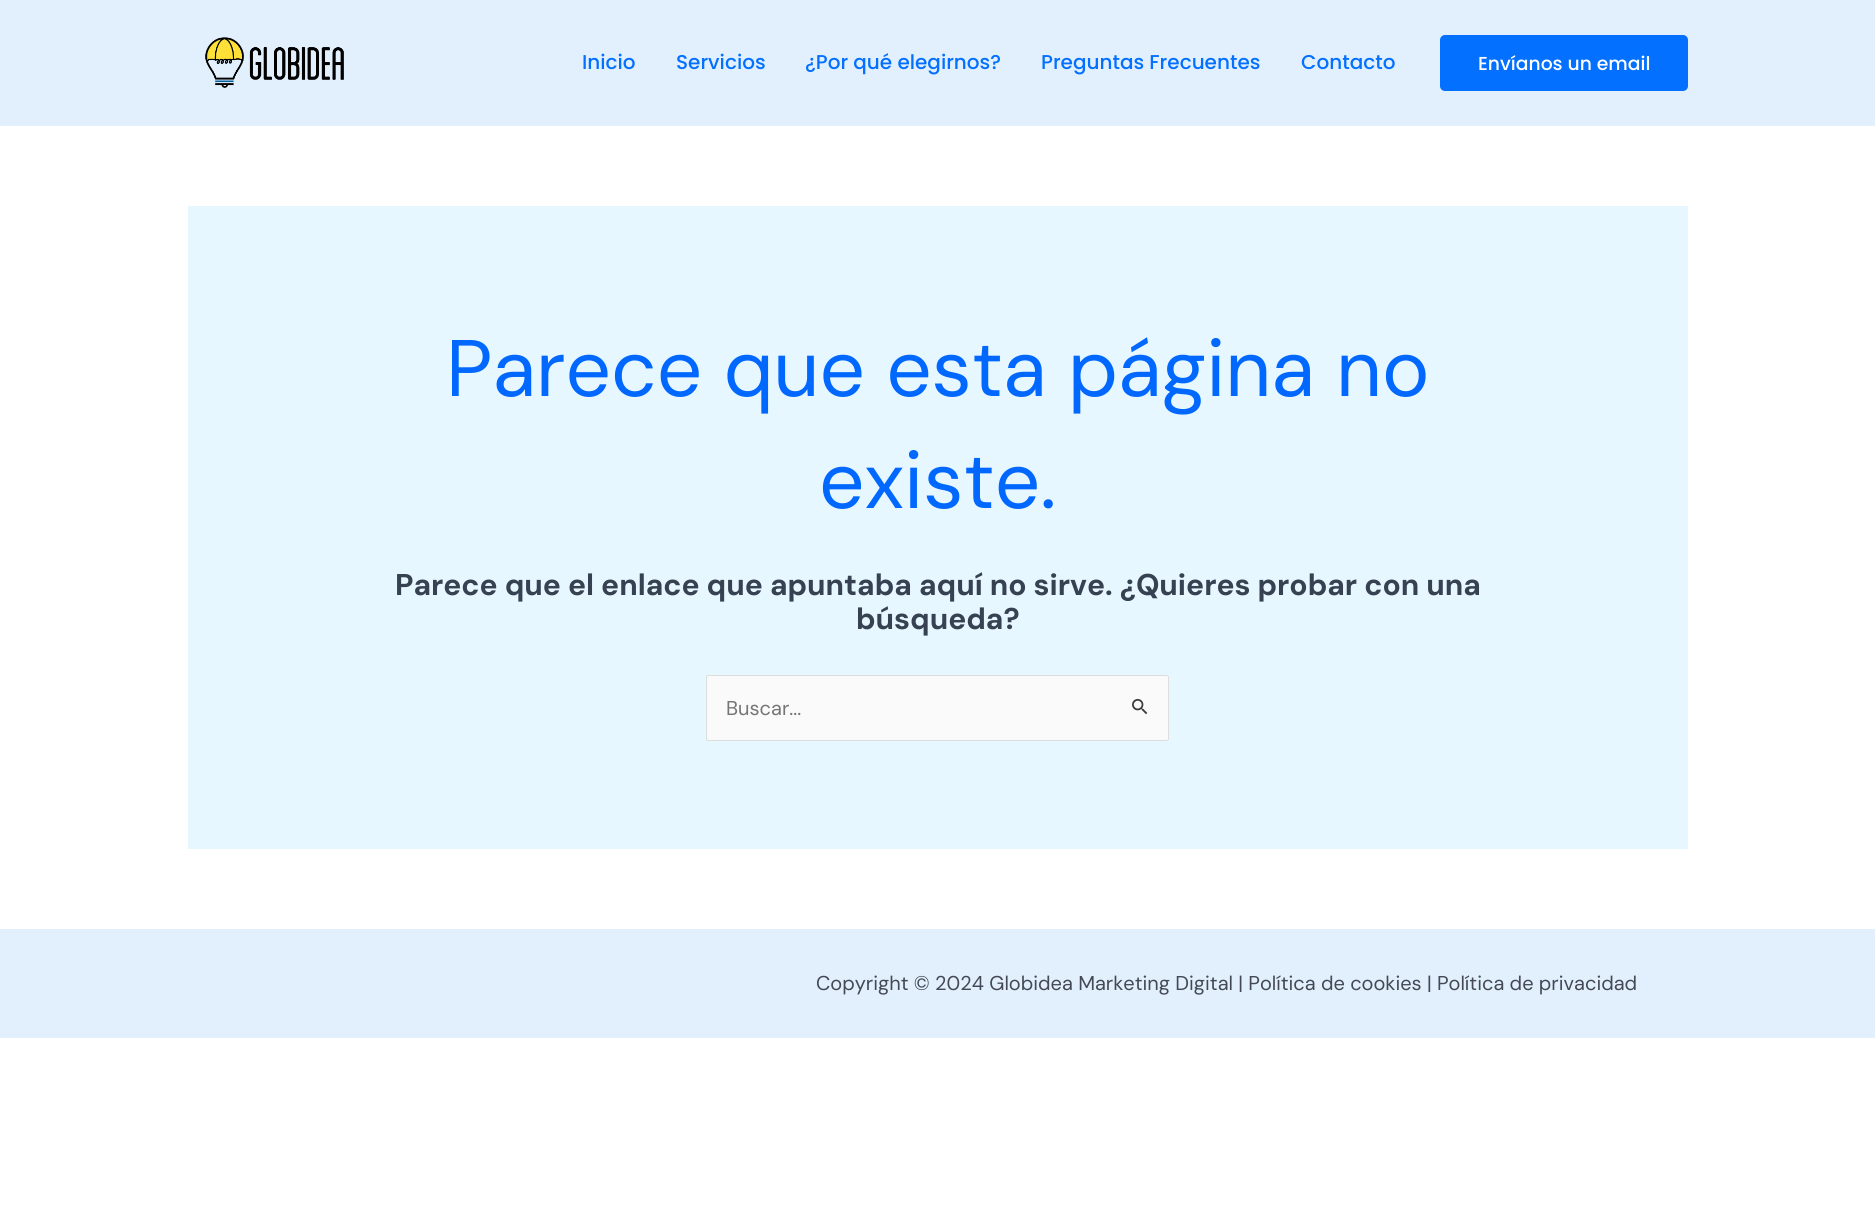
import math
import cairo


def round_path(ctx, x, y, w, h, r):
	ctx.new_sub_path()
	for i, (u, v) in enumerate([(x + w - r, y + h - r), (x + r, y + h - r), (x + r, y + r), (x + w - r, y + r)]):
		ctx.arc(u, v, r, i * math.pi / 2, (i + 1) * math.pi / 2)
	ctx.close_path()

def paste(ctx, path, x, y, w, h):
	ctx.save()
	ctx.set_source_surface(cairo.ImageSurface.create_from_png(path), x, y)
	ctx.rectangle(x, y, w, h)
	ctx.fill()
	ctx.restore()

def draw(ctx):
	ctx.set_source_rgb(1, 1, 1)
	ctx.paint()
	ctx.set_source_rgb(0.886, 0.941, 0.996)
	ctx.rectangle(0, 0, 1875, 126)
	ctx.fill()
	paste(ctx, 'media/1.png', 205, 37, 139, 51)
	ctx.select_font_face('Poppins Medium')
	ctx.set_font_size(20)
	ctx.set_source_rgb(0.012, 0.439, 1)
	for x, y, s in [
		(582, 69, 'Inicio'),
		(676, 69, 'Servicios'),
		(805, 69, '¿Por qué elegirnos?'),
		(1041, 69, 'Preguntas Frecuentes'),
		(1301, 69, 'Contacto'),
	]:
		ctx.move_to(x, y)
		ctx.show_text(s)
	round_path(ctx, 1440, 35, 248, 56, 5)
	ctx.fill()
	ctx.set_font_size(18.75)
	ctx.set_source_rgb(1, 1, 1)
	ctx.move_to(1478, 70)
	ctx.show_text('Envíanos un email')
	ctx.set_source_rgb(0.906, 0.965, 1)
	ctx.rectangle(188, 206, 1500, 643)
	ctx.fill()
	ctx.select_font_face('DM Sans')
	ctx.set_font_size(80)
	ctx.set_source_rgb(0, 0.404, 1)
	ctx.move_to(446, 396)
	ctx.show_text('Parece que esta página no')
	ctx.move_to(819, 508)
	ctx.show_text('existe.')
	ctx.select_font_face('DM Sans', cairo.FONT_SLANT_NORMAL, cairo.FONT_WEIGHT_BOLD)
	ctx.set_font_size(30)
	ctx.set_source_rgb(0.212, 0.255, 0.318)
	ctx.move_to(395, 595)
	ctx.show_text('Parece que el enlace que apuntaba aquí no sirve. ¿Quieres probar con una')
	ctx.move_to(856, 629)
	ctx.show_text('búsqueda?')
	ctx.set_source_rgb(0.98, 0.98, 0.98)
	round_path(ctx, 706.5, 675.5, 462, 65, 2)
	ctx.fill_preserve()
	ctx.set_source_rgb(0.867, 0.867, 0.867)
	ctx.set_line_width(1)
	ctx.stroke()
	ctx.select_font_face('DM Sans')
	ctx.set_font_size(20)
	ctx.set_source_rgb(0.459, 0.459, 0.459)
	ctx.move_to(726, 715)
	ctx.show_text('Buscar...')
	paste(ctx, 'media/2.png', 1132, 699, 16, 16)
	ctx.set_source_rgb(0.886, 0.941, 0.996)
	ctx.rectangle(0, 929, 1875, 109)
	ctx.fill()
	ctx.set_source_rgb(0.267, 0.286, 0.333)
	ctx.move_to(816, 990)
	ctx.show_text('Copyright © 2024 Globidea Marketing Digital | Política de cookies | Política de privacidad')


surface = cairo.ImageSurface(cairo.FORMAT_RGB24, 1875, 1220)
ctx = cairo.Context(surface)
options = cairo.FontOptions()
options.set_hint_metrics(cairo.HINT_METRICS_OFF)
options.set_hint_style(cairo.HINT_STYLE_NONE)
ctx.set_font_options(options)
ctx.set_miter_limit(4)
draw(ctx)
surface.write_to_png('image.png')
